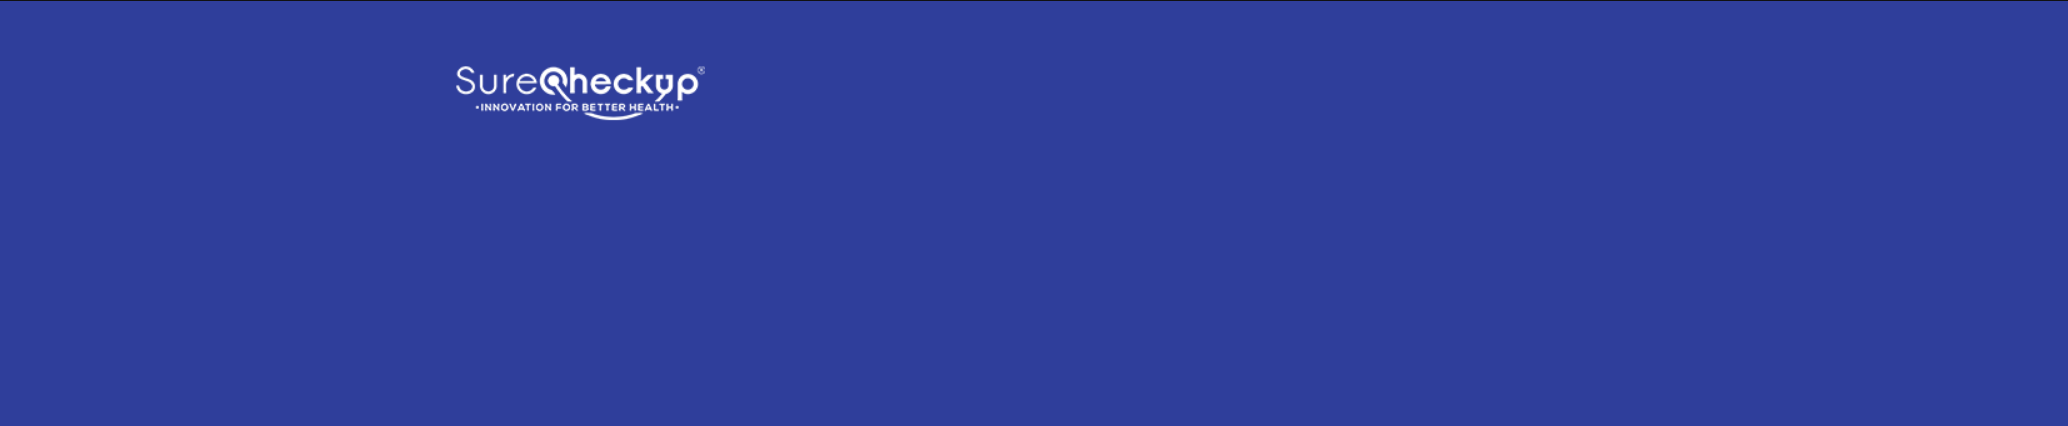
import math
import cairo


def paste(ctx, path, x, y, w, h):
	ctx.save()
	ctx.set_source_surface(cairo.ImageSurface.create_from_png(path), x, y)
	ctx.rectangle(x, y, w, h)
	ctx.fill()
	ctx.restore()

def draw(ctx):
	ctx.set_source_rgb(0.184, 0.243, 0.608)
	ctx.paint()
	ctx.set_source_rgb(0.067, 0.067, 0.067)
	ctx.rectangle(0, 0, 2068, 1)
	ctx.fill()
	paste(ctx, 'media/1.png', 456, 66, 249, 55)


surface = cairo.ImageSurface(cairo.FORMAT_RGB24, 2068, 426)
ctx = cairo.Context(surface)
options = cairo.FontOptions()
options.set_hint_metrics(cairo.HINT_METRICS_OFF)
options.set_hint_style(cairo.HINT_STYLE_NONE)
ctx.set_font_options(options)
ctx.set_miter_limit(4)
draw(ctx)
surface.write_to_png('image.png')
